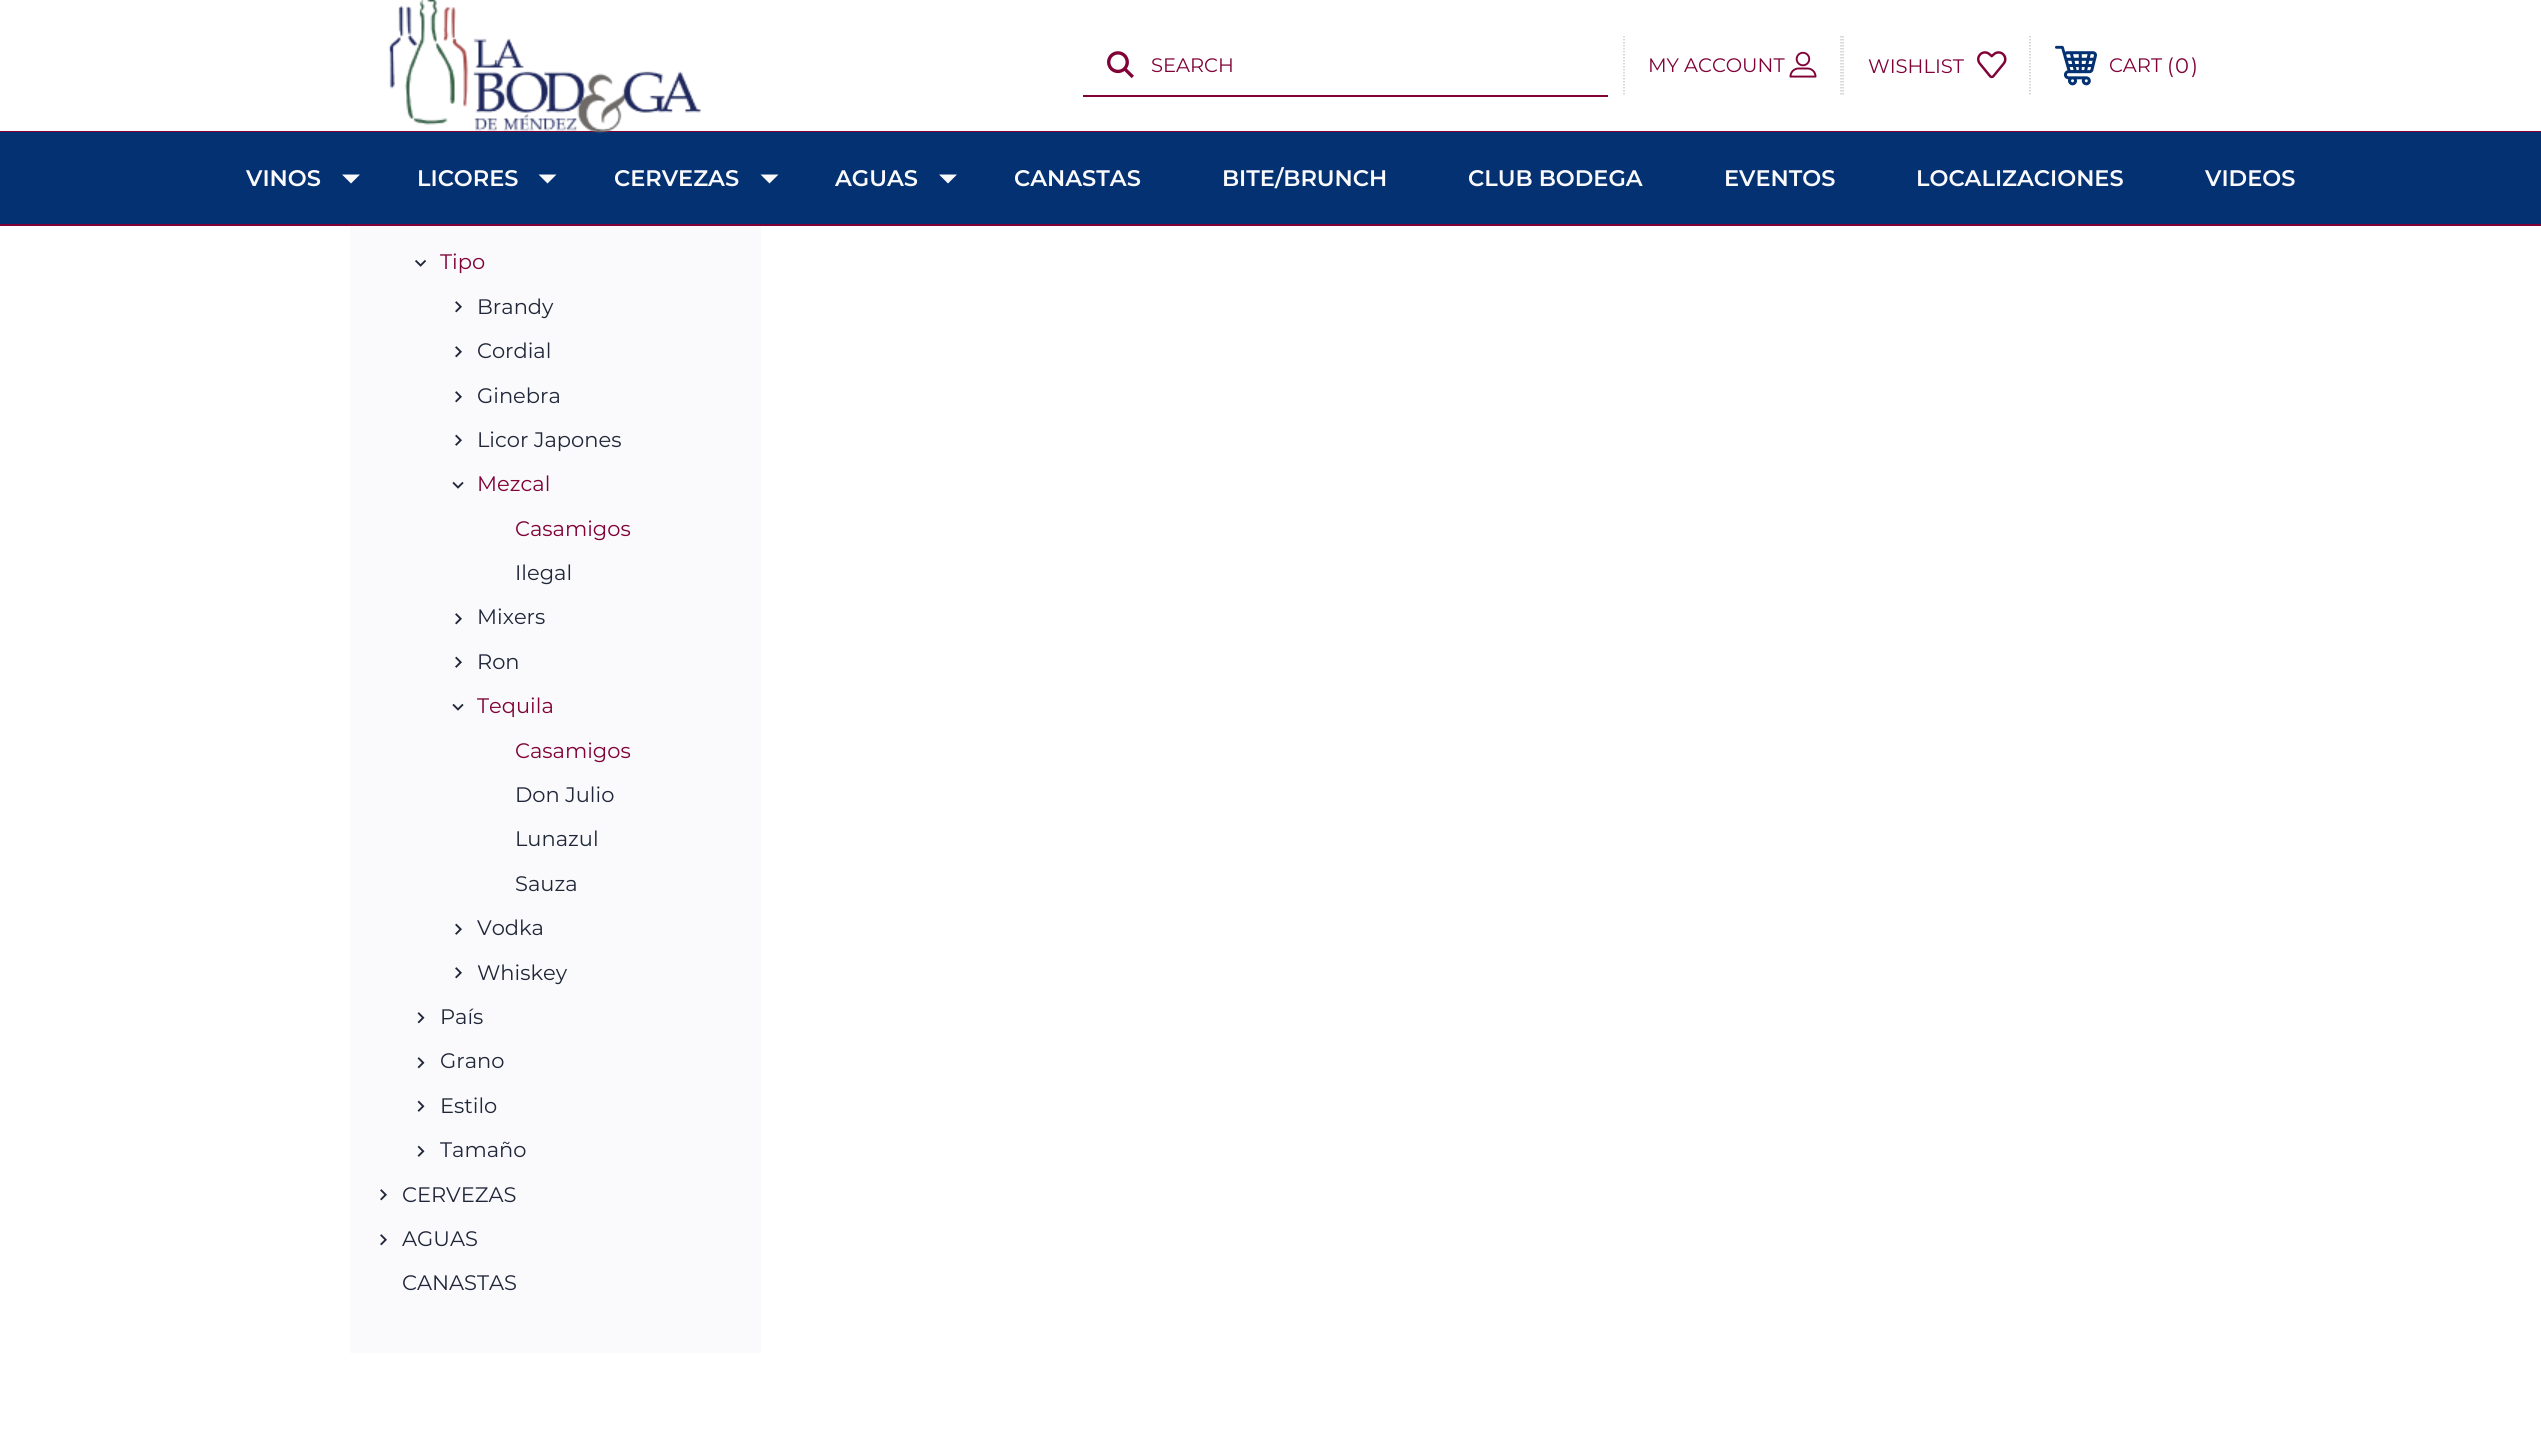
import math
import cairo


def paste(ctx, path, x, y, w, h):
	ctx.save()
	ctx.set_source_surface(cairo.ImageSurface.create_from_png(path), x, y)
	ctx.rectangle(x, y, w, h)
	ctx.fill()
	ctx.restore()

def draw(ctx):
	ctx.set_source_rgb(1, 1, 1)
	ctx.paint()
	ctx.set_source_rgb(0.502, 0.008, 0.216)
	ctx.rectangle(0, 224, 2541, 2)
	ctx.rectangle(0, 131, 2541, 1)
	ctx.fill()
	ctx.set_source_rgb(0.012, 0.192, 0.443)
	ctx.rectangle(0, 132, 2541, 92)
	ctx.fill()
	paste(ctx, 'media/1.png', 388, 0, 313, 134)
	ctx.set_source_rgb(0.502, 0.008, 0.216)
	ctx.rectangle(1083, 95, 525, 2)
	ctx.fill()
	paste(ctx, 'media/2.png', 1107, 51, 27, 28)
	ctx.select_font_face('Montserrat')
	ctx.set_font_size(19.5)
	ctx.move_to(1151, 72)
	ctx.show_text('SEARCH')
	ctx.new_path()
	ctx.move_to(1841, 36)
	ctx.line_to(1841, 96)
	ctx.set_source_rgb(0.8, 0.8, 0.8)
	ctx.set_line_width(1.5)
	ctx.set_dash([1.5, 1.5])
	ctx.stroke()
	ctx.new_path()
	ctx.move_to(1624, 36)
	ctx.line_to(1624, 96)
	ctx.stroke()
	ctx.set_source_rgb(0.502, 0.008, 0.216)
	ctx.move_to(1648, 72)
	ctx.show_text('MY ACCOUNT')
	paste(ctx, 'media/3.png', 1789, 51, 28, 27)
	ctx.new_path()
	ctx.move_to(2030, 36)
	ctx.line_to(2030, 94.5)
	ctx.set_source_rgb(0.8, 0.8, 0.8)
	ctx.stroke()
	ctx.new_path()
	ctx.move_to(1843, 36)
	ctx.line_to(1843, 94.5)
	ctx.stroke()
	ctx.set_source_rgb(0.502, 0.008, 0.216)
	ctx.move_to(1868, 73)
	ctx.show_text('WISHLIST')
	paste(ctx, 'media/4.png', 1977, 51, 30, 28)
	paste(ctx, 'media/5.png', 2055, 45, 42, 41)
	ctx.move_to(2109, 72)
	ctx.show_text('CART')
	ctx.set_font_size(21)
	for x, y, s in [
		(2167, 73, '('),
		(2175, 73, '0'),
		(2191, 73, ')'),
	]:
		ctx.move_to(x, y)
		ctx.show_text(s)
	ctx.select_font_face('Montserrat SemiBold')
	ctx.set_font_size(22.5)
	ctx.set_source_rgb(0.98, 0.98, 0.992)
	ctx.move_to(246, 186)
	ctx.show_text('VINOS')
	ctx.new_path()
	ctx.move_to(342, 174.5)
	ctx.line_to(351, 183.5)
	ctx.line_to(360, 174.5)
	ctx.close_path()
	ctx.fill()
	ctx.move_to(417, 186)
	ctx.show_text('LICORES')
	ctx.new_path()
	ctx.move_to(538.5, 174.5)
	ctx.line_to(547.5, 183.5)
	ctx.line_to(556.5, 174.5)
	ctx.close_path()
	ctx.fill()
	ctx.move_to(614, 186)
	ctx.show_text('CERVEZAS')
	ctx.new_path()
	ctx.move_to(760.5, 174.5)
	ctx.line_to(769.5, 183.5)
	ctx.line_to(778.5, 174.5)
	ctx.close_path()
	ctx.fill()
	ctx.move_to(835, 186)
	ctx.show_text('AGUAS')
	ctx.new_path()
	ctx.move_to(939, 174.5)
	ctx.line_to(948, 183.5)
	ctx.line_to(957, 174.5)
	ctx.close_path()
	ctx.fill()
	for x, y, s in [
		(1014, 186, 'CANASTAS'),
		(1222, 186, 'BITE/BRUNCH'),
		(1468, 186, 'CLUB BODEGA'),
		(1724, 186, 'EVENTOS'),
		(1916, 186, 'LOCALIZACIONES'),
		(2205, 186, 'VIDEOS'),
	]:
		ctx.move_to(x, y)
		ctx.show_text(s)
	ctx.rectangle(350, 226, 411, 1127)
	ctx.fill()
	paste(ctx, 'media/6.png', 415, 260, 12, 7)
	ctx.select_font_face('Montserrat')
	ctx.set_font_size(21)
	ctx.set_source_rgb(0.502, 0.008, 0.216)
	ctx.move_to(440, 269)
	ctx.show_text('Tipo')
	paste(ctx, 'media/7.png', 455, 301, 7, 12)
	ctx.set_source_rgb(0.125, 0.153, 0.22)
	ctx.move_to(477, 314)
	ctx.show_text('Brandy')
	paste(ctx, 'media/7.png', 455, 346, 7, 12)
	ctx.move_to(477, 358)
	ctx.show_text('Cordial')
	paste(ctx, 'media/7.png', 455, 391, 7, 12)
	ctx.move_to(477, 403)
	ctx.show_text('Ginebra')
	paste(ctx, 'media/8.png', 455, 434, 7, 12)
	ctx.move_to(477, 447)
	ctx.show_text('Licor Japones')
	paste(ctx, 'media/9.png', 452, 481, 12, 8)
	ctx.set_source_rgb(0.502, 0.008, 0.216)
	ctx.move_to(477, 491)
	ctx.show_text('Mezcal')
	ctx.move_to(515, 536)
	ctx.show_text('Casamigos')
	ctx.set_source_rgb(0.125, 0.153, 0.22)
	ctx.move_to(515, 580)
	ctx.show_text('Ilegal')
	paste(ctx, 'media/7.png', 455, 613, 7, 12)
	ctx.move_to(477, 624)
	ctx.show_text('Mixers')
	paste(ctx, 'media/8.png', 455, 656, 7, 12)
	ctx.move_to(477, 669)
	ctx.show_text('Ron')
	paste(ctx, 'media/10.png', 452, 703, 12, 8)
	ctx.set_source_rgb(0.502, 0.008, 0.216)
	ctx.move_to(477, 713)
	ctx.show_text('Tequila')
	ctx.move_to(515, 758)
	ctx.show_text('Casamigos')
	ctx.set_source_rgb(0.125, 0.153, 0.22)
	for x, y, s in [
		(515, 802, 'Don Julio'),
		(515, 846, 'Lunazul'),
		(515, 891, 'Sauza'),
	]:
		ctx.move_to(x, y)
		ctx.show_text(s)
	paste(ctx, 'media/8.png', 455, 923, 7, 12)
	ctx.move_to(477, 935)
	ctx.show_text('Vodka')
	paste(ctx, 'media/7.png', 455, 967, 7, 12)
	ctx.move_to(477, 980)
	ctx.show_text('Whiskey')
	paste(ctx, 'media/11.png', 417, 1012, 8, 12)
	ctx.move_to(440, 1024)
	ctx.show_text('País')
	paste(ctx, 'media/11.png', 417, 1057, 8, 12)
	ctx.move_to(440, 1068)
	ctx.show_text('Grano')
	paste(ctx, 'media/12.png', 417, 1100, 8, 12)
	ctx.move_to(440, 1113)
	ctx.show_text('Estilo')
	paste(ctx, 'media/12.png', 417, 1145, 8, 12)
	ctx.move_to(440, 1157)
	ctx.show_text('Tamaño')
	paste(ctx, 'media/7.png', 380, 1189, 7, 12)
	ctx.move_to(402, 1202)
	ctx.show_text('CERVEZAS')
	paste(ctx, 'media/7.png', 380, 1234, 7, 12)
	ctx.move_to(402, 1246)
	ctx.show_text('AGUAS')
	ctx.move_to(402, 1290)
	ctx.show_text('CANASTAS')


surface = cairo.ImageSurface(cairo.FORMAT_RGB24, 2541, 1453)
ctx = cairo.Context(surface)
options = cairo.FontOptions()
options.set_hint_metrics(cairo.HINT_METRICS_OFF)
options.set_hint_style(cairo.HINT_STYLE_NONE)
ctx.set_font_options(options)
ctx.set_miter_limit(4)
draw(ctx)
surface.write_to_png('image.png')
